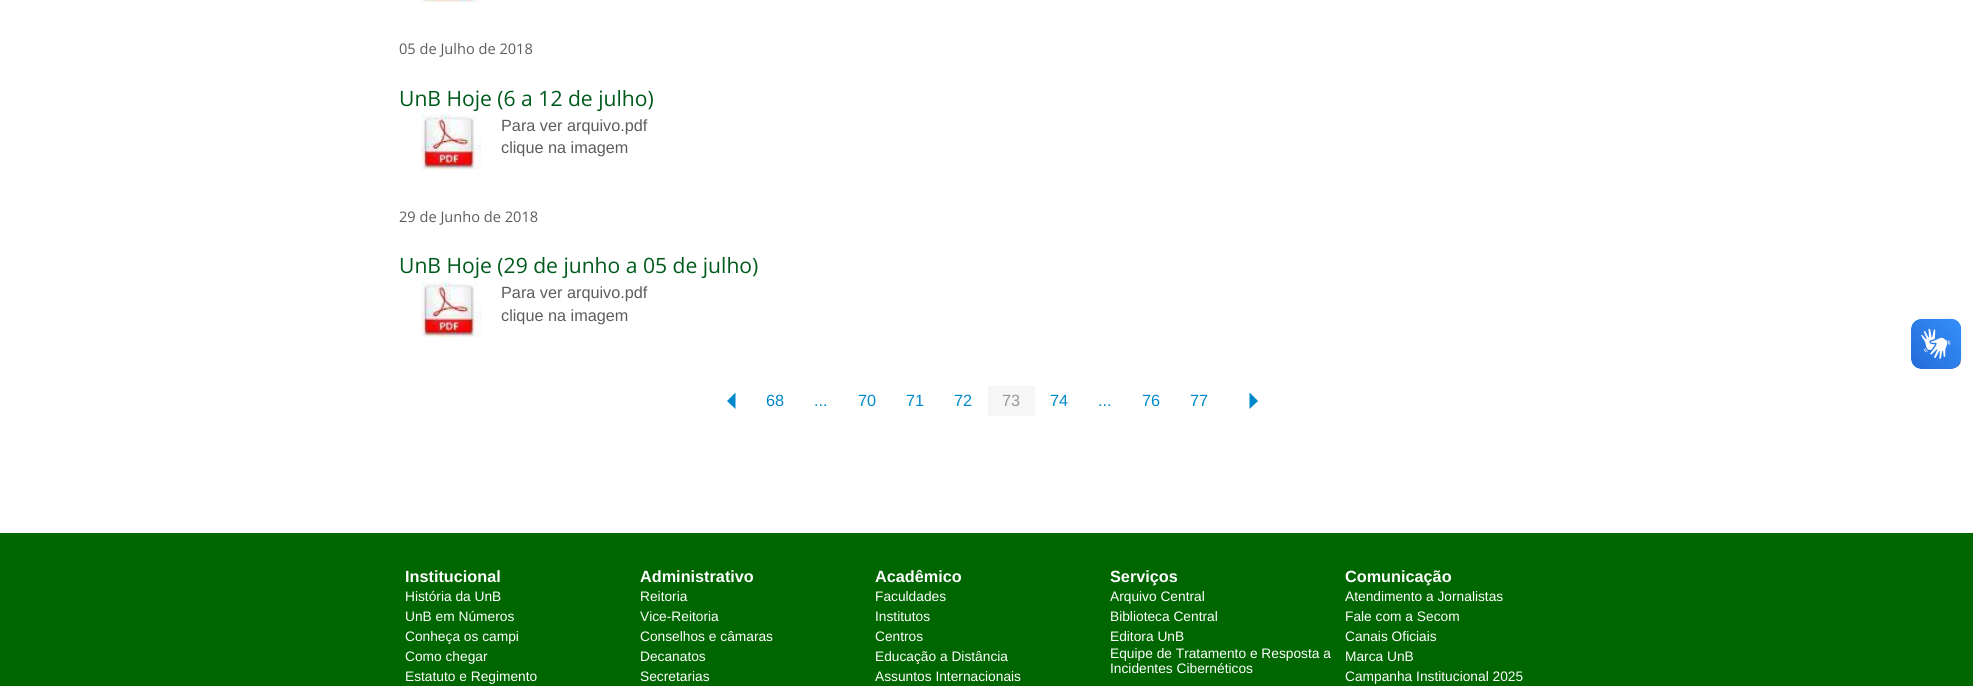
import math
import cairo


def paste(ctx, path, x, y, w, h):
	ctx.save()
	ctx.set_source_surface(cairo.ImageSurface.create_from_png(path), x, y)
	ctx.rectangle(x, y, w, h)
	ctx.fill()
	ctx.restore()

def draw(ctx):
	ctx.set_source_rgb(1, 1, 1)
	ctx.paint()
	paste(ctx, 'media/1.png', 421, 0, 61, 3)
	ctx.select_font_face('Open Sans')
	ctx.set_font_size(14.6)
	ctx.set_source_rgb(0.365, 0.365, 0.365)
	ctx.move_to(399, 54)
	ctx.show_text('05 de Julho de 2018')
	ctx.set_font_size(21.1)
	ctx.set_source_rgb(0, 0.353, 0.11)
	ctx.move_to(399, 106)
	ctx.show_text('UnB Hoje (6 a 12 de julho)')
	paste(ctx, 'media/2.png', 421, 114, 61, 56)
	ctx.select_font_face('Liberation Sans')
	ctx.set_font_size(16.25)
	ctx.set_source_rgb(0.365, 0.365, 0.365)
	ctx.move_to(501, 131)
	ctx.show_text('Para ver arquivo.pdf')
	ctx.move_to(501, 153)
	ctx.show_text('clique na imagem')
	ctx.select_font_face('Open Sans')
	ctx.set_font_size(14.6)
	ctx.move_to(399, 222)
	ctx.show_text('29 de Junho de 2018')
	ctx.set_font_size(21.1)
	ctx.set_source_rgb(0, 0.353, 0.11)
	ctx.move_to(399, 273)
	ctx.show_text('UnB Hoje (29 de junho a 05 de julho)')
	paste(ctx, 'media/3.png', 420, 282, 62, 56)
	ctx.select_font_face('Liberation Sans')
	ctx.set_font_size(16.25)
	ctx.set_source_rgb(0.365, 0.365, 0.365)
	ctx.move_to(501, 298)
	ctx.show_text('Para ver arquivo.pdf')
	ctx.move_to(501, 321)
	ctx.show_text('clique na imagem')
	ctx.set_source_rgb(0, 0.533, 0.8)
	ctx.new_path()
	ctx.move_to(735.5, 392.5)
	ctx.line_to(735.5, 409)
	ctx.line_to(727, 401)
	ctx.close_path()
	ctx.fill()
	for x, y, s in [
		(766, 406, '68'),
		(814, 406, '...'),
		(858, 406, '70'),
		(906, 406, '71'),
		(954, 406, '72'),
	]:
		ctx.move_to(x, y)
		ctx.show_text(s)
	ctx.set_source_rgb(0.961, 0.961, 0.961)
	ctx.rectangle(988, 386, 47, 30)
	ctx.fill()
	ctx.set_source_rgb(0.6, 0.6, 0.6)
	ctx.move_to(1002, 406)
	ctx.show_text('73')
	ctx.set_source_rgb(0, 0.533, 0.8)
	for x, y, s in [
		(1050, 406, '74'),
		(1098, 406, '...'),
		(1142, 406, '76'),
		(1190, 406, '77'),
	]:
		ctx.move_to(x, y)
		ctx.show_text(s)
	ctx.new_path()
	ctx.move_to(1249.5, 409)
	ctx.line_to(1249.5, 392.5)
	ctx.line_to(1258, 401)
	ctx.close_path()
	ctx.fill()
	paste(ctx, 'media/4.png', 1911, 318, 51, 51)
	paste(ctx, 'media/5.png', 1911, 319, 50, 50)
	ctx.set_source_rgb(0, 0.4, 0)
	ctx.rectangle(0, 533, 1973, 153)
	ctx.fill()
	ctx.select_font_face('Liberation Sans', cairo.FONT_SLANT_NORMAL, cairo.FONT_WEIGHT_BOLD)
	ctx.set_source_rgb(1, 1, 1)
	ctx.move_to(405, 582)
	ctx.show_text('Institucional')
	ctx.select_font_face('Liberation Sans')
	ctx.set_font_size(13.75)
	for x, y, s in [
		(405, 601, 'História da UnB'),
		(405, 621, 'UnB em Números'),
		(405, 641, 'Conheça os campi'),
		(405, 661, 'Como chegar'),
		(405, 681, 'Estatuto e Regimento'),
	]:
		ctx.move_to(x, y)
		ctx.show_text(s)
	ctx.select_font_face('Liberation Sans', cairo.FONT_SLANT_NORMAL, cairo.FONT_WEIGHT_BOLD)
	ctx.set_font_size(16.25)
	ctx.move_to(640, 582)
	ctx.show_text('Administrativo')
	ctx.select_font_face('Liberation Sans')
	ctx.set_font_size(13.75)
	for x, y, s in [
		(640, 601, 'Reitoria'),
		(640, 621, 'Vice-Reitoria'),
		(640, 641, 'Conselhos e câmaras'),
		(640, 661, 'Decanatos'),
		(640, 681, 'Secretarias'),
	]:
		ctx.move_to(x, y)
		ctx.show_text(s)
	ctx.select_font_face('Liberation Sans', cairo.FONT_SLANT_NORMAL, cairo.FONT_WEIGHT_BOLD)
	ctx.set_font_size(16.25)
	ctx.move_to(875, 582)
	ctx.show_text('Acadêmico')
	ctx.select_font_face('Liberation Sans')
	ctx.set_font_size(13.75)
	for x, y, s in [
		(875, 601, 'Faculdades'),
		(875, 621, 'Institutos'),
		(875, 641, 'Centros'),
		(875, 661, 'Educação a Distância'),
		(875, 681, 'Assuntos Internacionais'),
	]:
		ctx.move_to(x, y)
		ctx.show_text(s)
	ctx.select_font_face('Liberation Sans', cairo.FONT_SLANT_NORMAL, cairo.FONT_WEIGHT_BOLD)
	ctx.set_font_size(16.25)
	ctx.move_to(1110, 582)
	ctx.show_text('Serviços')
	ctx.select_font_face('Liberation Sans')
	ctx.set_font_size(13.75)
	for x, y, s in [
		(1110, 601, 'Arquivo Central'),
		(1110, 621, 'Biblioteca Central'),
		(1110, 641, 'Editora UnB'),
		(1110, 658, 'Equipe de Tratamento e Resposta a'),
		(1110, 673, 'Incidentes Cibernéticos'),
	]:
		ctx.move_to(x, y)
		ctx.show_text(s)
	ctx.select_font_face('Liberation Sans', cairo.FONT_SLANT_NORMAL, cairo.FONT_WEIGHT_BOLD)
	ctx.set_font_size(16.25)
	ctx.move_to(1345, 582)
	ctx.show_text('Comunicação')
	ctx.select_font_face('Liberation Sans')
	ctx.set_font_size(13.75)
	for x, y, s in [
		(1345, 601, 'Atendimento a Jornalistas'),
		(1345, 621, 'Fale com a Secom'),
		(1345, 641, 'Canais Oficiais'),
		(1345, 661, 'Marca UnB'),
		(1345, 681, 'Campanha Institucional 2025'),
	]:
		ctx.move_to(x, y)
		ctx.show_text(s)


surface = cairo.ImageSurface(cairo.FORMAT_RGB24, 1973, 686)
ctx = cairo.Context(surface)
options = cairo.FontOptions()
options.set_hint_metrics(cairo.HINT_METRICS_OFF)
options.set_hint_style(cairo.HINT_STYLE_NONE)
ctx.set_font_options(options)
ctx.set_miter_limit(4)
draw(ctx)
surface.write_to_png('image.png')
